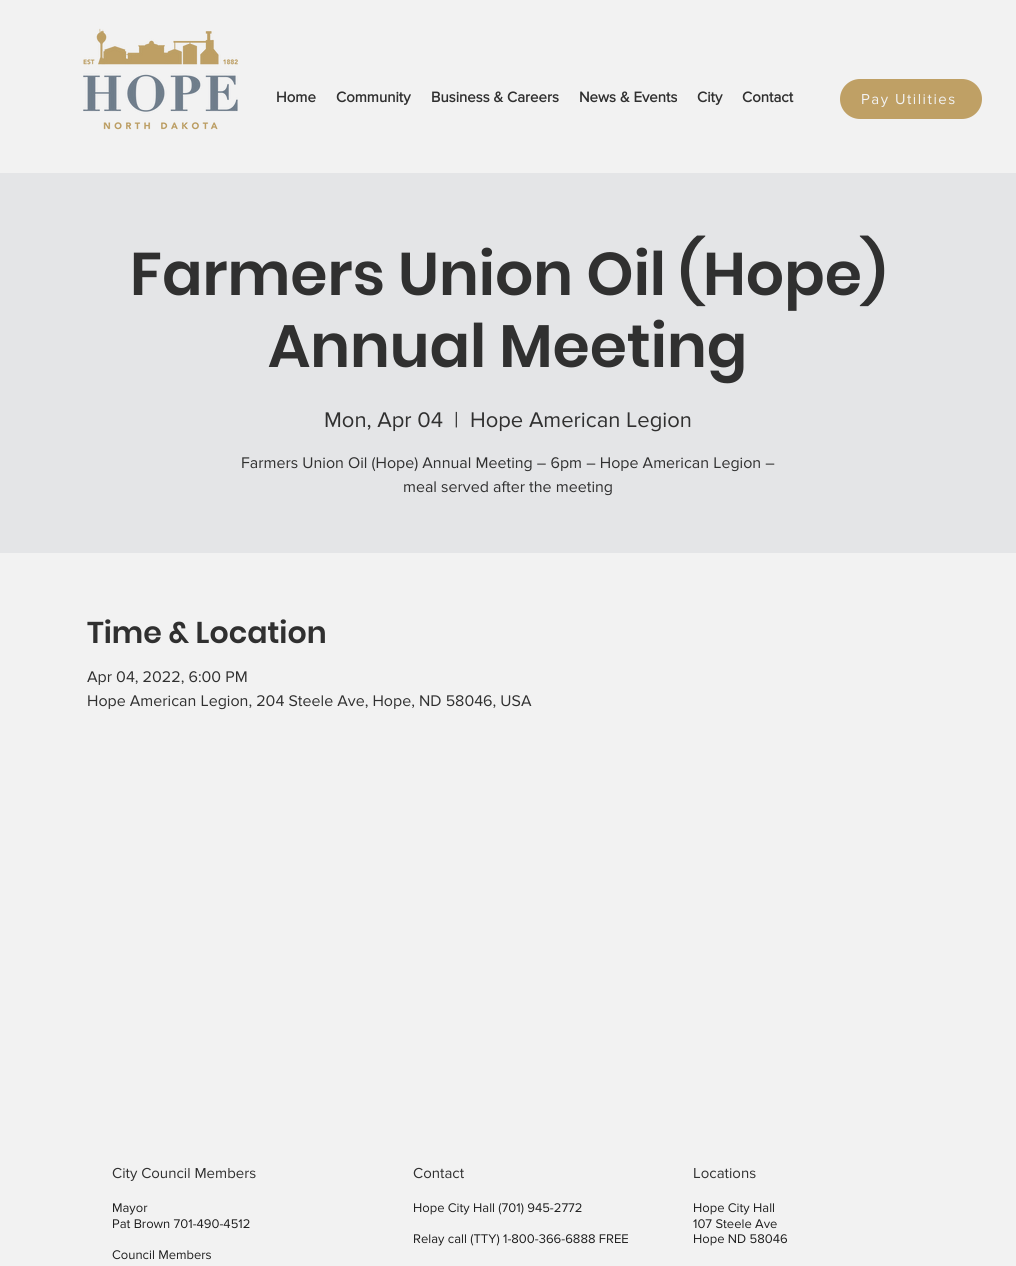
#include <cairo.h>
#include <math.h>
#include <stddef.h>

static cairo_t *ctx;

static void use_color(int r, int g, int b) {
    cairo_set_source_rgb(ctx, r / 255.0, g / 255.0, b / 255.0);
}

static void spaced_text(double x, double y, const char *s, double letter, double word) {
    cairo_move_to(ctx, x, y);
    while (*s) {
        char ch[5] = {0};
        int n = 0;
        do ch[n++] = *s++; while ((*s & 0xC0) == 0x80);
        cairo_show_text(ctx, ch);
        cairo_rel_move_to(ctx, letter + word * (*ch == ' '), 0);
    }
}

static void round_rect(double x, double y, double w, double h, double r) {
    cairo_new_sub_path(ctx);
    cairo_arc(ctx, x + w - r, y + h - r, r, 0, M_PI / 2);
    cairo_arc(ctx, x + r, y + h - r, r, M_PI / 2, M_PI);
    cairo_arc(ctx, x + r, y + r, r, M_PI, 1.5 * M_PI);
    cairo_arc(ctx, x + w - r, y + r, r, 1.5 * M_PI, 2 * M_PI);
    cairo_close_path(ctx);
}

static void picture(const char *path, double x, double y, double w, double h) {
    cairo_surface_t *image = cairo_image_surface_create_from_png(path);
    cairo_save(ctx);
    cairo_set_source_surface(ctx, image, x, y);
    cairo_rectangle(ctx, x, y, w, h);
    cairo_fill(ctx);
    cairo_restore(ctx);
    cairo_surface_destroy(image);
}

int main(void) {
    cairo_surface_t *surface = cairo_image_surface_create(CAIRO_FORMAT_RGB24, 1016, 1266);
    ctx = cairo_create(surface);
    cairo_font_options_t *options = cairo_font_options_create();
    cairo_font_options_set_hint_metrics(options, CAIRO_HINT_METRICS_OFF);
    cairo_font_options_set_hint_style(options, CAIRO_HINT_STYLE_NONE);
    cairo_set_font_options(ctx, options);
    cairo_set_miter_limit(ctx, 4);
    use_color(242, 242, 242);
    cairo_paint(ctx);
    picture("img1.png", 83, 28, 155, 102);
    cairo_select_font_face(ctx, "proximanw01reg", CAIRO_FONT_SLANT_NORMAL, CAIRO_FONT_WEIGHT_BOLD);
    cairo_set_font_size(ctx, 15);
    use_color(48, 48, 48);
    cairo_move_to(ctx, 276, 102);
    cairo_show_text(ctx, "Home");
    cairo_move_to(ctx, 336, 102);
    cairo_show_text(ctx, "Community");
    cairo_move_to(ctx, 431, 102);
    cairo_show_text(ctx, "Business & Careers");
    cairo_move_to(ctx, 579, 102);
    cairo_show_text(ctx, "News & Events");
    cairo_move_to(ctx, 697, 102);
    cairo_show_text(ctx, "City");
    cairo_move_to(ctx, 742, 102);
    cairo_show_text(ctx, "Contact");
    use_color(191, 160, 101);
    round_rect(840, 79, 142, 40, 20);
    cairo_fill(ctx);
    cairo_select_font_face(ctx, "proximanw01reg", CAIRO_FONT_SLANT_NORMAL, CAIRO_FONT_WEIGHT_NORMAL);
    use_color(242, 242, 242);
    spaced_text(861, 104, "Pay Utilities", 1.5, 0);
    use_color(228, 229, 231);
    cairo_rectangle(ctx, 0, 173, 1016, 380);
    cairo_fill(ctx);
    cairo_select_font_face(ctx, "Poppins SemiBold", CAIRO_FONT_SLANT_NORMAL, CAIRO_FONT_WEIGHT_NORMAL);
    cairo_set_font_size(ctx, 60);
    use_color(48, 48, 48);
    cairo_move_to(ctx, 130, 295);
    cairo_show_text(ctx, "Farmers Union Oil (Hope)");
    cairo_move_to(ctx, 268, 367);
    cairo_show_text(ctx, "Annual Meeting");
    cairo_select_font_face(ctx, "proximanw01reg", CAIRO_FONT_SLANT_NORMAL, CAIRO_FONT_WEIGHT_NORMAL);
    cairo_set_font_size(ctx, 22);
    cairo_move_to(ctx, 324, 427);
    cairo_show_text(ctx, "Mon, Apr 04");
    cairo_move_to(ctx, 454, 427);
    cairo_show_text(ctx, "|");
    cairo_move_to(ctx, 470, 427);
    cairo_show_text(ctx, "Hope American Legion");
    cairo_set_font_size(ctx, 16);
    cairo_move_to(ctx, 241, 468);
    cairo_show_text(ctx, "Farmers Union Oil (Hope) Annual Meeting – 6pm – Hope American Legion –");
    cairo_move_to(ctx, 403, 492);
    cairo_show_text(ctx, "meal served after the meeting");
    cairo_select_font_face(ctx, "Poppins SemiBold", CAIRO_FONT_SLANT_NORMAL, CAIRO_FONT_WEIGHT_NORMAL);
    cairo_set_font_size(ctx, 30);
    cairo_move_to(ctx, 87, 643);
    cairo_show_text(ctx, "Time & Location");
    cairo_select_font_face(ctx, "proximanw01reg", CAIRO_FONT_SLANT_NORMAL, CAIRO_FONT_WEIGHT_NORMAL);
    cairo_set_font_size(ctx, 16);
    cairo_move_to(ctx, 87, 682);
    cairo_show_text(ctx, "Apr 04, 2022, 6:00 PM");
    cairo_move_to(ctx, 87, 706);
    cairo_show_text(ctx, "Hope American Legion, 204 Steele Ave, Hope, ND 58046, USA");
    cairo_set_font_size(ctx, 15);
    cairo_move_to(ctx, 112, 1178);
    cairo_show_text(ctx, "City Council Members");
    cairo_set_font_size(ctx, 13);
    use_color(30, 30, 30);
    cairo_move_to(ctx, 112, 1212);
    cairo_show_text(ctx, "Mayor");
    cairo_move_to(ctx, 112, 1228);
    cairo_show_text(ctx, "Pat Brown 701-490-4512");
    cairo_move_to(ctx, 112, 1259);
    cairo_show_text(ctx, "Council Members");
    cairo_set_font_size(ctx, 15);
    use_color(48, 48, 48);
    cairo_move_to(ctx, 413, 1178);
    cairo_show_text(ctx, "Contact");
    cairo_set_font_size(ctx, 13);
    use_color(30, 30, 30);
    cairo_move_to(ctx, 413, 1212);
    cairo_show_text(ctx, "Hope City Hall (701) 945-2772");
    cairo_move_to(ctx, 413, 1243);
    cairo_show_text(ctx, "Relay call (TTY) 1-800-366-6888 FREE");
    cairo_set_font_size(ctx, 15);
    use_color(48, 48, 48);
    cairo_move_to(ctx, 693, 1178);
    cairo_show_text(ctx, "Locations");
    cairo_set_font_size(ctx, 13);
    use_color(30, 30, 30);
    cairo_move_to(ctx, 693, 1212);
    cairo_show_text(ctx, "Hope City Hall");
    cairo_move_to(ctx, 693, 1228);
    cairo_show_text(ctx, "107 Steele Ave");
    cairo_move_to(ctx, 693, 1243);
    cairo_show_text(ctx, "Hope ND 58046");
    cairo_surface_write_to_png(surface, "result.png");
    cairo_font_options_destroy(options);
    cairo_destroy(ctx);
    cairo_surface_destroy(surface);
    return 0;
}
